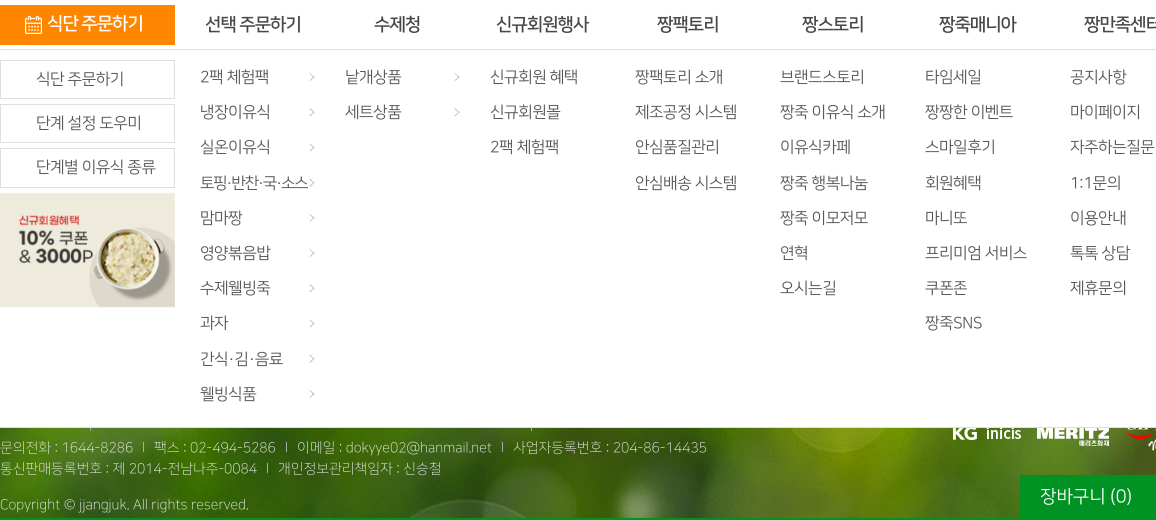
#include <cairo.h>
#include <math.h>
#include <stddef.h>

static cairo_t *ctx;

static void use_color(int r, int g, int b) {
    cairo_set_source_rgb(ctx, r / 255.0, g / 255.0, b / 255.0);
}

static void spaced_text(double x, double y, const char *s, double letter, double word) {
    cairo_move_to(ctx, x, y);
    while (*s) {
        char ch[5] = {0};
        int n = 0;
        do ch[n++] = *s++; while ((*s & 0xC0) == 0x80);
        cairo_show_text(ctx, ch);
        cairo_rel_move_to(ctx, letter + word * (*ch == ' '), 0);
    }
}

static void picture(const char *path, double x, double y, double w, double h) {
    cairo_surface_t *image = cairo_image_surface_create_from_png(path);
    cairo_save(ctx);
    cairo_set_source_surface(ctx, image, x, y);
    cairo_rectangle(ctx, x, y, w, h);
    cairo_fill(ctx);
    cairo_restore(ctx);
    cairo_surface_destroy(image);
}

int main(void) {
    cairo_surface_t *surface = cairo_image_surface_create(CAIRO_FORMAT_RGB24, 1156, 520);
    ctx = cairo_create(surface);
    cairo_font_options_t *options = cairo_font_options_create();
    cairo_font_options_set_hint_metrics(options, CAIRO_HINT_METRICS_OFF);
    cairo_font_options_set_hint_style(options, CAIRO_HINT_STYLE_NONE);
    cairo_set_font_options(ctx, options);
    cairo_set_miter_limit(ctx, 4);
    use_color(255, 255, 255);
    cairo_paint(ctx);
    use_color(255, 134, 1);
    cairo_rectangle(ctx, 0, 5, 175, 40);
    cairo_fill(ctx);
    picture("img1.png", 25, 16, 17, 18);
    cairo_select_font_face(ctx, "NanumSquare", CAIRO_FONT_SLANT_NORMAL, CAIRO_FONT_WEIGHT_BOLD);
    cairo_set_font_size(ctx, 18);
    use_color(255, 255, 255);
    spaced_text(47, 29, "식단 주문하기", -1, 0);
    use_color(72, 72, 72);
    spaced_text(205, 30, "선택 주문하기", -1, 0);
    spaced_text(374, 30, "수제청", -1, 0);
    spaced_text(496, 30, "신규회원행사", -1, 0);
    spaced_text(657, 30, "짱팩토리", -1, 0);
    spaced_text(802, 30, "짱스토리", -1, 0);
    spaced_text(939, 30, "짱죽매니아", -1, 0);
    spaced_text(1084, 30, "짱만족센터", -1, 0);
    picture("img3.png", 0, 428, 1156, 90);
    use_color(170, 170, 170);
    cairo_rectangle(ctx, 90, 421, 1, 10);
    cairo_fill(ctx);
    cairo_rectangle(ctx, 531, 421, 1, 10);
    cairo_fill(ctx);
    use_color(255, 255, 255);
    cairo_rectangle(ctx, 90, 421, 442, 6);
    cairo_fill(ctx);
    use_color(223, 223, 223);
    cairo_rectangle(ctx, 0, 49, 1156, 1);
    cairo_fill(ctx);
    cairo_rectangle(ctx, 0, 427, 1156, 1);
    cairo_fill(ctx);
    cairo_rectangle(ctx, 0.5, 60.5, 174, 38);
    cairo_set_line_width(ctx, 1);
    cairo_stroke(ctx);
    cairo_select_font_face(ctx, "NanumSquare", CAIRO_FONT_SLANT_NORMAL, CAIRO_FONT_WEIGHT_NORMAL);
    cairo_set_font_size(ctx, 16);
    use_color(88, 88, 88);
    spaced_text(36, 84, "식단 주문하기", -0.5, 0);
    cairo_rectangle(ctx, 0.5, 104.5, 174, 38);
    use_color(223, 223, 223);
    cairo_stroke(ctx);
    use_color(88, 88, 88);
    spaced_text(36, 128, "단계 설정 도우미", -0.5, 0);
    cairo_rectangle(ctx, 0.5, 148.5, 174, 39);
    use_color(223, 223, 223);
    cairo_stroke(ctx);
    use_color(88, 88, 88);
    spaced_text(36, 172, "단계별 이유식 종류", -0.5, 0);
    picture("img2.png", 0, 192, 175, 116);
    spaced_text(200, 82, "2팩 체험팩", -0.5, 0);
    use_color(187, 187, 187);
    cairo_new_path(ctx);
    cairo_move_to(ctx, 309.5, 80.5);
    cairo_line_to(ctx, 314, 76);
    cairo_line_to(ctx, 314.5, 77);
    cairo_line_to(ctx, 310, 81);
    cairo_close_path(ctx);
    cairo_fill(ctx);
    cairo_new_path(ctx);
    cairo_move_to(ctx, 310, 73);
    cairo_line_to(ctx, 314.5, 77.5);
    cairo_line_to(ctx, 314, 78);
    cairo_line_to(ctx, 309.5, 73.5);
    cairo_close_path(ctx);
    cairo_fill(ctx);
    use_color(88, 88, 88);
    spaced_text(200, 117, "냉장이유식", -0.5, 0);
    use_color(187, 187, 187);
    cairo_new_path(ctx);
    cairo_move_to(ctx, 309.5, 115.5);
    cairo_line_to(ctx, 314, 111.5);
    cairo_line_to(ctx, 314.5, 112);
    cairo_line_to(ctx, 310, 116.5);
    cairo_close_path(ctx);
    cairo_fill(ctx);
    cairo_new_path(ctx);
    cairo_move_to(ctx, 310, 108);
    cairo_line_to(ctx, 314.5, 112.5);
    cairo_line_to(ctx, 314, 113);
    cairo_line_to(ctx, 309.5, 109);
    cairo_close_path(ctx);
    cairo_fill(ctx);
    use_color(88, 88, 88);
    spaced_text(200, 152, "실온이유식", -0.5, 0);
    use_color(187, 187, 187);
    cairo_new_path(ctx);
    cairo_move_to(ctx, 309.5, 151);
    cairo_line_to(ctx, 314, 146.5);
    cairo_line_to(ctx, 314.5, 147.5);
    cairo_line_to(ctx, 310, 151.5);
    cairo_close_path(ctx);
    cairo_fill(ctx);
    cairo_new_path(ctx);
    cairo_move_to(ctx, 310, 143.5);
    cairo_line_to(ctx, 314.5, 147.5);
    cairo_line_to(ctx, 314, 148.5);
    cairo_line_to(ctx, 309.5, 144);
    cairo_close_path(ctx);
    cairo_fill(ctx);
    use_color(88, 88, 88);
    spaced_text(200, 188, "토핑·반찬·국·소스", -1.5, 0);
    use_color(187, 187, 187);
    cairo_new_path(ctx);
    cairo_move_to(ctx, 309.5, 186);
    cairo_line_to(ctx, 314, 182);
    cairo_line_to(ctx, 314.5, 182.5);
    cairo_line_to(ctx, 310, 187);
    cairo_close_path(ctx);
    cairo_fill(ctx);
    cairo_new_path(ctx);
    cairo_move_to(ctx, 310, 178.5);
    cairo_line_to(ctx, 314.5, 183);
    cairo_line_to(ctx, 314, 183.5);
    cairo_line_to(ctx, 309.5, 179.5);
    cairo_close_path(ctx);
    cairo_fill(ctx);
    use_color(88, 88, 88);
    spaced_text(200, 223, "맘마짱", -0.5, 0);
    use_color(187, 187, 187);
    cairo_new_path(ctx);
    cairo_move_to(ctx, 309.5, 221.5);
    cairo_line_to(ctx, 314, 217);
    cairo_line_to(ctx, 314.5, 217.5);
    cairo_line_to(ctx, 310, 222);
    cairo_close_path(ctx);
    cairo_fill(ctx);
    cairo_new_path(ctx);
    cairo_move_to(ctx, 310, 214);
    cairo_line_to(ctx, 314.5, 218);
    cairo_line_to(ctx, 314, 219);
    cairo_line_to(ctx, 309.5, 214.5);
    cairo_close_path(ctx);
    cairo_fill(ctx);
    use_color(88, 88, 88);
    spaced_text(200, 258, "영양볶음밥", -0.5, 0);
    use_color(187, 187, 187);
    cairo_new_path(ctx);
    cairo_move_to(ctx, 309.5, 256.5);
    cairo_line_to(ctx, 314, 252);
    cairo_line_to(ctx, 314.5, 253);
    cairo_line_to(ctx, 310, 257);
    cairo_close_path(ctx);
    cairo_fill(ctx);
    cairo_new_path(ctx);
    cairo_move_to(ctx, 310, 249);
    cairo_line_to(ctx, 314.5, 253.5);
    cairo_line_to(ctx, 314, 254);
    cairo_line_to(ctx, 309.5, 249.5);
    cairo_close_path(ctx);
    cairo_fill(ctx);
    use_color(88, 88, 88);
    spaced_text(200, 293, "수제웰빙죽", -0.5, 0);
    use_color(187, 187, 187);
    cairo_new_path(ctx);
    cairo_move_to(ctx, 309.5, 291.5);
    cairo_line_to(ctx, 314, 287.5);
    cairo_line_to(ctx, 314.5, 288);
    cairo_line_to(ctx, 310, 292.5);
    cairo_close_path(ctx);
    cairo_fill(ctx);
    cairo_new_path(ctx);
    cairo_move_to(ctx, 310, 284);
    cairo_line_to(ctx, 314.5, 288.5);
    cairo_line_to(ctx, 314, 289);
    cairo_line_to(ctx, 309.5, 285);
    cairo_close_path(ctx);
    cairo_fill(ctx);
    use_color(88, 88, 88);
    spaced_text(200, 328, "과자", -0.5, 0);
    use_color(187, 187, 187);
    cairo_new_path(ctx);
    cairo_move_to(ctx, 309.5, 327);
    cairo_line_to(ctx, 314, 322.5);
    cairo_line_to(ctx, 314.5, 323.5);
    cairo_line_to(ctx, 310, 327.5);
    cairo_close_path(ctx);
    cairo_fill(ctx);
    cairo_new_path(ctx);
    cairo_move_to(ctx, 310, 319.5);
    cairo_line_to(ctx, 314.5, 323.5);
    cairo_line_to(ctx, 314, 324.5);
    cairo_line_to(ctx, 309.5, 320);
    cairo_close_path(ctx);
    cairo_fill(ctx);
    use_color(88, 88, 88);
    spaced_text(200, 364, "간식·김·음료", -0.5, 0);
    use_color(187, 187, 187);
    cairo_new_path(ctx);
    cairo_move_to(ctx, 309.5, 362);
    cairo_line_to(ctx, 314, 358);
    cairo_line_to(ctx, 314.5, 358.5);
    cairo_line_to(ctx, 310, 363);
    cairo_close_path(ctx);
    cairo_fill(ctx);
    cairo_new_path(ctx);
    cairo_move_to(ctx, 310, 354.5);
    cairo_line_to(ctx, 314.5, 359);
    cairo_line_to(ctx, 314, 359.5);
    cairo_line_to(ctx, 309.5, 355.5);
    cairo_close_path(ctx);
    cairo_fill(ctx);
    use_color(88, 88, 88);
    spaced_text(200, 399, "웰빙식품", -0.5, 0);
    use_color(187, 187, 187);
    cairo_new_path(ctx);
    cairo_move_to(ctx, 309.5, 397.5);
    cairo_line_to(ctx, 314, 393);
    cairo_line_to(ctx, 314.5, 394);
    cairo_line_to(ctx, 310, 398);
    cairo_close_path(ctx);
    cairo_fill(ctx);
    cairo_new_path(ctx);
    cairo_move_to(ctx, 310, 390);
    cairo_line_to(ctx, 314.5, 394);
    cairo_line_to(ctx, 314, 395);
    cairo_line_to(ctx, 309.5, 390.5);
    cairo_close_path(ctx);
    cairo_fill(ctx);
    use_color(88, 88, 88);
    spaced_text(345, 82, "낱개상품", -0.5, 0);
    use_color(187, 187, 187);
    cairo_new_path(ctx);
    cairo_move_to(ctx, 454.5, 80.5);
    cairo_line_to(ctx, 459, 76);
    cairo_line_to(ctx, 459.5, 77);
    cairo_line_to(ctx, 455, 81);
    cairo_close_path(ctx);
    cairo_fill(ctx);
    cairo_new_path(ctx);
    cairo_move_to(ctx, 455, 73);
    cairo_line_to(ctx, 459.5, 77.5);
    cairo_line_to(ctx, 459, 78);
    cairo_line_to(ctx, 454.5, 73.5);
    cairo_close_path(ctx);
    cairo_fill(ctx);
    use_color(88, 88, 88);
    spaced_text(345, 117, "세트상품", -0.5, 0);
    use_color(187, 187, 187);
    cairo_new_path(ctx);
    cairo_move_to(ctx, 454.5, 115.5);
    cairo_line_to(ctx, 459, 111.5);
    cairo_line_to(ctx, 459.5, 112);
    cairo_line_to(ctx, 455, 116.5);
    cairo_close_path(ctx);
    cairo_fill(ctx);
    cairo_new_path(ctx);
    cairo_move_to(ctx, 455, 108);
    cairo_line_to(ctx, 459.5, 112.5);
    cairo_line_to(ctx, 459, 113);
    cairo_line_to(ctx, 454.5, 109);
    cairo_close_path(ctx);
    cairo_fill(ctx);
    use_color(88, 88, 88);
    spaced_text(490, 82, "신규회원 혜택", -0.5, 0);
    spaced_text(490, 117, "신규회원몰", -0.5, 0);
    spaced_text(490, 152, "2팩 체험팩", -0.5, 0);
    spaced_text(635, 82, "짱팩토리 소개", -0.5, 0);
    spaced_text(635, 117, "제조공정 시스템", -0.5, 0);
    spaced_text(635, 152, "안심품질관리", -0.5, 0);
    spaced_text(635, 188, "안심배송 시스템", -0.5, 0);
    spaced_text(780, 82, "브랜드스토리", -0.5, 0);
    spaced_text(780, 117, "짱죽 이유식 소개", -0.5, 0);
    spaced_text(780, 152, "이유식카페", -0.5, 0);
    spaced_text(780, 188, "짱죽 행복나눔", -0.5, 0);
    spaced_text(780, 223, "짱죽 이모저모", -0.5, 0);
    spaced_text(780, 258, "연혁", -0.5, 0);
    spaced_text(780, 293, "오시는길", -0.5, 0);
    spaced_text(925, 82, "타임세일", -0.5, 0);
    spaced_text(925, 117, "짱짱한 이벤트", -0.5, 0);
    spaced_text(925, 152, "스마일후기", -0.5, 0);
    spaced_text(925, 188, "회원혜택", -0.5, 0);
    spaced_text(925, 223, "마니또", -0.5, 0);
    spaced_text(925, 258, "프리미엄 서비스", -0.5, 0);
    spaced_text(925, 293, "쿠폰존", -0.5, 0);
    spaced_text(925, 328, "짱죽SNS", -0.5, 0);
    spaced_text(1070, 82, "공지사항", -0.5, 0);
    spaced_text(1070, 117, "마이페이지", -0.5, 0);
    spaced_text(1070, 152, "자주하는질문", -0.5, 0);
    spaced_text(1070, 188, "1:1문의", -0.5, 0);
    spaced_text(1070, 223, "이용안내", -0.5, 0);
    spaced_text(1070, 258, "톡톡 상담", -0.5, 0);
    spaced_text(1070, 293, "제휴문의", -0.5, 0);
    cairo_select_font_face(ctx, "NanumSquare Light", CAIRO_FONT_SLANT_NORMAL, CAIRO_FONT_WEIGHT_NORMAL);
    cairo_set_font_size(ctx, 14);
    use_color(238, 238, 238);
    cairo_move_to(ctx, 0, 452);
    cairo_show_text(ctx, "문의전화 : 1644-8286");
    use_color(170, 170, 170);
    cairo_rectangle(ctx, 143, 442, 1, 10);
    cairo_fill(ctx);
    use_color(238, 238, 238);
    cairo_move_to(ctx, 154, 452);
    cairo_show_text(ctx, "팩스 : 02-494-5286");
    use_color(170, 170, 170);
    cairo_rectangle(ctx, 286, 442, 1, 10);
    cairo_fill(ctx);
    use_color(238, 238, 238);
    cairo_move_to(ctx, 297, 452);
    cairo_show_text(ctx, "이메일 : dokyye02@hanmail.net");
    use_color(170, 170, 170);
    cairo_rectangle(ctx, 502, 442, 1, 10);
    cairo_fill(ctx);
    use_color(238, 238, 238);
    cairo_move_to(ctx, 513, 452);
    cairo_show_text(ctx, "사업자등록번호 : 204-86-14435");
    cairo_move_to(ctx, 0, 473);
    cairo_show_text(ctx, "통신판매등록번호 : 제 2014-전남나주-0084");
    use_color(170, 170, 170);
    cairo_rectangle(ctx, 267, 463, 1, 10);
    cairo_fill(ctx);
    use_color(238, 238, 238);
    cairo_move_to(ctx, 278, 473);
    cairo_show_text(ctx, "개인정보관리책임자 : 신승철");
    cairo_move_to(ctx, 0, 509);
    cairo_show_text(ctx, "Copyright © jjangjuk. All rights reserved.");
    picture("img4.png", 953, 428, 68, 12);
    picture("img5.png", 1037, 428, 72, 18);
    picture("img6.png", 1125, 428, 31, 23);
    use_color(0, 146, 35);
    cairo_rectangle(ctx, 0, 518, 1020, 2);
    cairo_fill(ctx);
    cairo_rectangle(ctx, 1020, 475, 136, 45);
    cairo_fill(ctx);
    cairo_select_font_face(ctx, "NanumSquare", CAIRO_FONT_SLANT_NORMAL, CAIRO_FONT_WEIGHT_NORMAL);
    cairo_set_font_size(ctx, 18);
    use_color(255, 255, 255);
    cairo_move_to(ctx, 1040, 502);
    cairo_show_text(ctx, "장바구니 (0)");
    cairo_surface_write_to_png(surface, "result.png");
    cairo_font_options_destroy(options);
    cairo_destroy(ctx);
    cairo_surface_destroy(surface);
    return 0;
}
